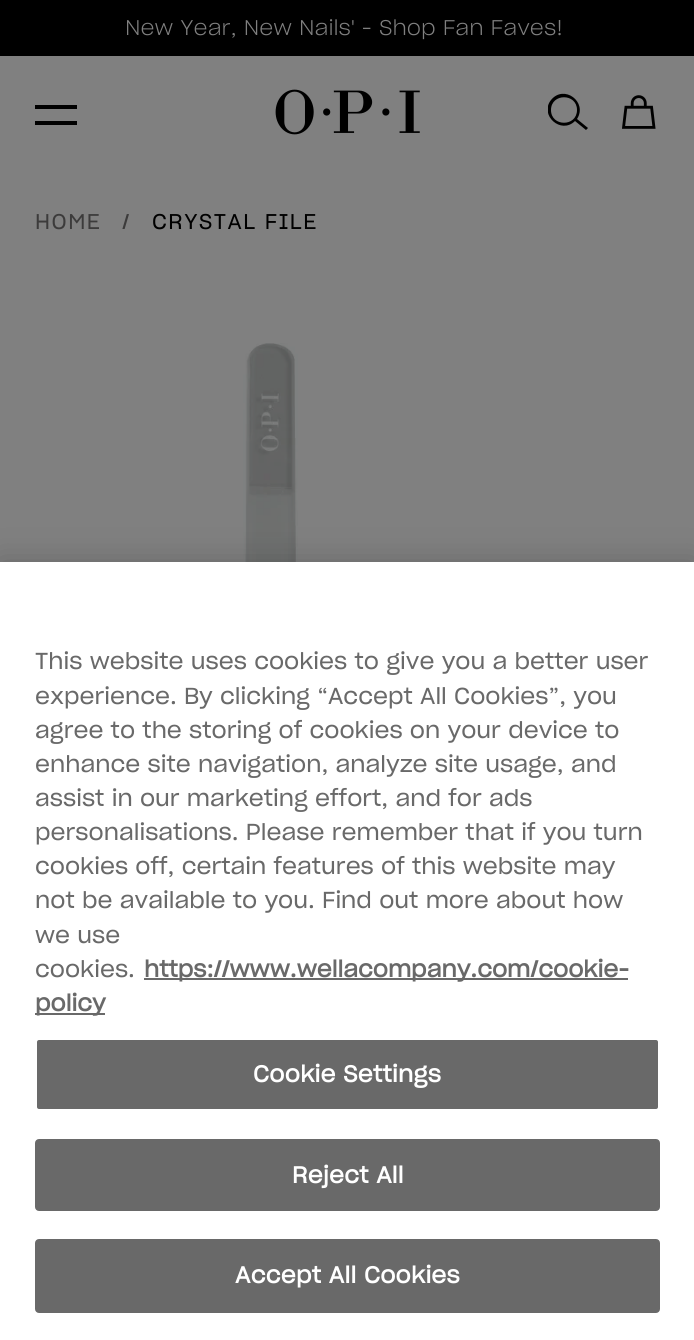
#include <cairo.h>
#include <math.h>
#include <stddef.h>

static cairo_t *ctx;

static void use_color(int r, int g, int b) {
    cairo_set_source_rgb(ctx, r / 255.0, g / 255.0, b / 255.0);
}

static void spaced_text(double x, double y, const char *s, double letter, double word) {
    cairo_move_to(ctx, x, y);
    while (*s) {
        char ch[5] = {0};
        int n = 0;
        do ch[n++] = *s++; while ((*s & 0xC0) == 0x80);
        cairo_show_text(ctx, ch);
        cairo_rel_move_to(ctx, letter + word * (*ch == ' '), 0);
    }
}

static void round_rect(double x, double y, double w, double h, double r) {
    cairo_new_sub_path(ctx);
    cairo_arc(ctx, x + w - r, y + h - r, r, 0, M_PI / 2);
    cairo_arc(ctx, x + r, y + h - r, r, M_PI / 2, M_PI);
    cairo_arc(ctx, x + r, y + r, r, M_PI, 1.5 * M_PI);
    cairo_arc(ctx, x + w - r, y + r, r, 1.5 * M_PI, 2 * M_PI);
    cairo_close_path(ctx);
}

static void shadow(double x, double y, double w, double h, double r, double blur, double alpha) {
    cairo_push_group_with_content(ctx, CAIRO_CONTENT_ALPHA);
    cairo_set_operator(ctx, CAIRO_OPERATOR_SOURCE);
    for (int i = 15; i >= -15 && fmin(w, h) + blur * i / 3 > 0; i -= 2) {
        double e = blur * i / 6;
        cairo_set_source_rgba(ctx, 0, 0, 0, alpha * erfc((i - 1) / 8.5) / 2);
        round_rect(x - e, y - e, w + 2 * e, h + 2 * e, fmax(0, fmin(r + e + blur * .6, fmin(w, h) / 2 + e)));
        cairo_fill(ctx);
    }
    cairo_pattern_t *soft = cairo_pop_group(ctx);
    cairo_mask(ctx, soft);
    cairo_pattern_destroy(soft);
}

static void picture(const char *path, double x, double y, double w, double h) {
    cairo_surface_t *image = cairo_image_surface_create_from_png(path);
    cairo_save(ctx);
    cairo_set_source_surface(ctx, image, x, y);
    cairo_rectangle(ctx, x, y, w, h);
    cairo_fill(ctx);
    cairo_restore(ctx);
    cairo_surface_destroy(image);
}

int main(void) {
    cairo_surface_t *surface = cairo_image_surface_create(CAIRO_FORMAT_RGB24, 694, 1340);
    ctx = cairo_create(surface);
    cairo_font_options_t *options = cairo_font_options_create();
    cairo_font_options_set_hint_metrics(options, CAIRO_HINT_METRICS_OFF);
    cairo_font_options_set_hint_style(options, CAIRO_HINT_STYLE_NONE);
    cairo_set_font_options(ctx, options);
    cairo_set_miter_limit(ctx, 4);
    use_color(128, 128, 128);
    cairo_paint(ctx);
    use_color(0, 0, 0);
    cairo_rectangle(ctx, 0, 0, 694, 56);
    cairo_fill(ctx);
    cairo_select_font_face(ctx, "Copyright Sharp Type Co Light", CAIRO_FONT_SLANT_NORMAL, CAIRO_FONT_WEIGHT_NORMAL);
    cairo_set_font_size(ctx, 21);
    use_color(128, 128, 128);
    cairo_move_to(ctx, 125, 35);
    cairo_show_text(ctx, "New Year, New Nails' - Shop Fan Faves!");
    use_color(0, 0, 0);
    cairo_rectangle(ctx, 35, 105, 42, 4);
    cairo_fill(ctx);
    cairo_rectangle(ctx, 35, 121, 42, 4);
    cairo_fill(ctx);
    picture("img1.png", 275, 89, 145, 46);
    cairo_save(ctx);
    cairo_rectangle(ctx, 548, 91, 42, 42);
    cairo_clip(ctx);
    cairo_set_fill_rule(ctx, CAIRO_FILL_RULE_EVEN_ODD);
    cairo_new_path(ctx);
    cairo_move_to(ctx, 577, 110);
    cairo_curve_to(ctx, 577, 127, 551, 127, 551, 110);
    cairo_curve_to(ctx, 551, 93, 577, 93, 577, 110);
    cairo_close_path(ctx);
    cairo_move_to(ctx, 575, 121);
    cairo_curve_to(ctx, 561, 135, 539, 115, 551, 100);
    cairo_curve_to(ctx, 564, 84, 588, 102, 577, 119);
    cairo_line_to(ctx, 588, 128);
    cairo_line_to(ctx, 586, 130);
    cairo_close_path(ctx);
    cairo_fill(ctx);
    cairo_restore(ctx);
    picture("img2.png", 622, 95, 34, 34);
    cairo_select_font_face(ctx, "Copyright Sharp Type Co", CAIRO_FONT_SLANT_NORMAL, CAIRO_FONT_WEIGHT_NORMAL);
    use_color(60, 59, 59);
    spaced_text(35, 229, "HOME", 1.5, 0);
    spaced_text(122, 229, "/", 1.5, 0);
    use_color(0, 0, 0);
    spaced_text(152, 229, "CRYSTAL FILE", 1.5, 0);
    picture("img3.png", 243, 343, 55, 219);
    use_color(0, 0, 0);
    shadow(0, 562, 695, 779, 0, 16, 0.2);
    use_color(255, 255, 255);
    cairo_rectangle(ctx, 0, 562, 694, 778);
    cairo_fill(ctx);
    cairo_set_font_size(ctx, 22.75);
    use_color(105, 105, 105);
    cairo_move_to(ctx, 35, 669);
    cairo_show_text(ctx, "This website uses cookies to give you a better user");
    cairo_move_to(ctx, 35, 704);
    cairo_show_text(ctx, "experience. By clicking “Accept All Cookies”, you");
    cairo_move_to(ctx, 35, 738);
    cairo_show_text(ctx, "agree to the storing of cookies on your device to");
    cairo_move_to(ctx, 35, 772);
    cairo_show_text(ctx, "enhance site navigation, analyze site usage, and");
    cairo_move_to(ctx, 35, 806);
    cairo_show_text(ctx, "assist in our marketing effort, and for ads");
    cairo_move_to(ctx, 35, 840);
    cairo_show_text(ctx, "personalisations. Please remember that if you turn");
    cairo_move_to(ctx, 35, 874);
    cairo_show_text(ctx, "cookies off, certain features of this website may");
    cairo_move_to(ctx, 35, 908);
    cairo_show_text(ctx, "not be available to you. Find out more about how");
    cairo_move_to(ctx, 35, 943);
    cairo_show_text(ctx, "we use");
    cairo_move_to(ctx, 35, 977);
    cairo_show_text(ctx, "cookies.");
    cairo_rectangle(ctx, 144, 978, 484, 2);
    cairo_fill(ctx);
    cairo_select_font_face(ctx, "Copyright Sharp Type Co", CAIRO_FONT_SLANT_NORMAL, CAIRO_FONT_WEIGHT_BOLD);
    cairo_move_to(ctx, 144, 977);
    cairo_show_text(ctx, "https://www.wellacompany.com/cookie-");
    cairo_rectangle(ctx, 35, 1013, 70, 2);
    cairo_fill(ctx);
    cairo_move_to(ctx, 35, 1011);
    cairo_show_text(ctx, "policy");
    round_rect(36, 1039, 623, 71, 3);
    cairo_fill_preserve(ctx);
    use_color(255, 255, 255);
    cairo_stroke(ctx);
    spaced_text(253, 1082, "Cookie Settings", 0.25, 0);
    use_color(105, 105, 105);
    round_rect(36, 1140, 623, 70, 3);
    cairo_fill_preserve(ctx);
    cairo_stroke(ctx);
    use_color(255, 255, 255);
    spaced_text(292, 1183, "Reject All", 0.25, 0);
    use_color(105, 105, 105);
    round_rect(36, 1240, 623, 72, 3);
    cairo_fill_preserve(ctx);
    cairo_stroke(ctx);
    use_color(255, 255, 255);
    spaced_text(235, 1283, "Accept All Cookies", 0.25, 0);
    cairo_surface_write_to_png(surface, "result.png");
    cairo_font_options_destroy(options);
    cairo_destroy(ctx);
    cairo_surface_destroy(surface);
    return 0;
}
